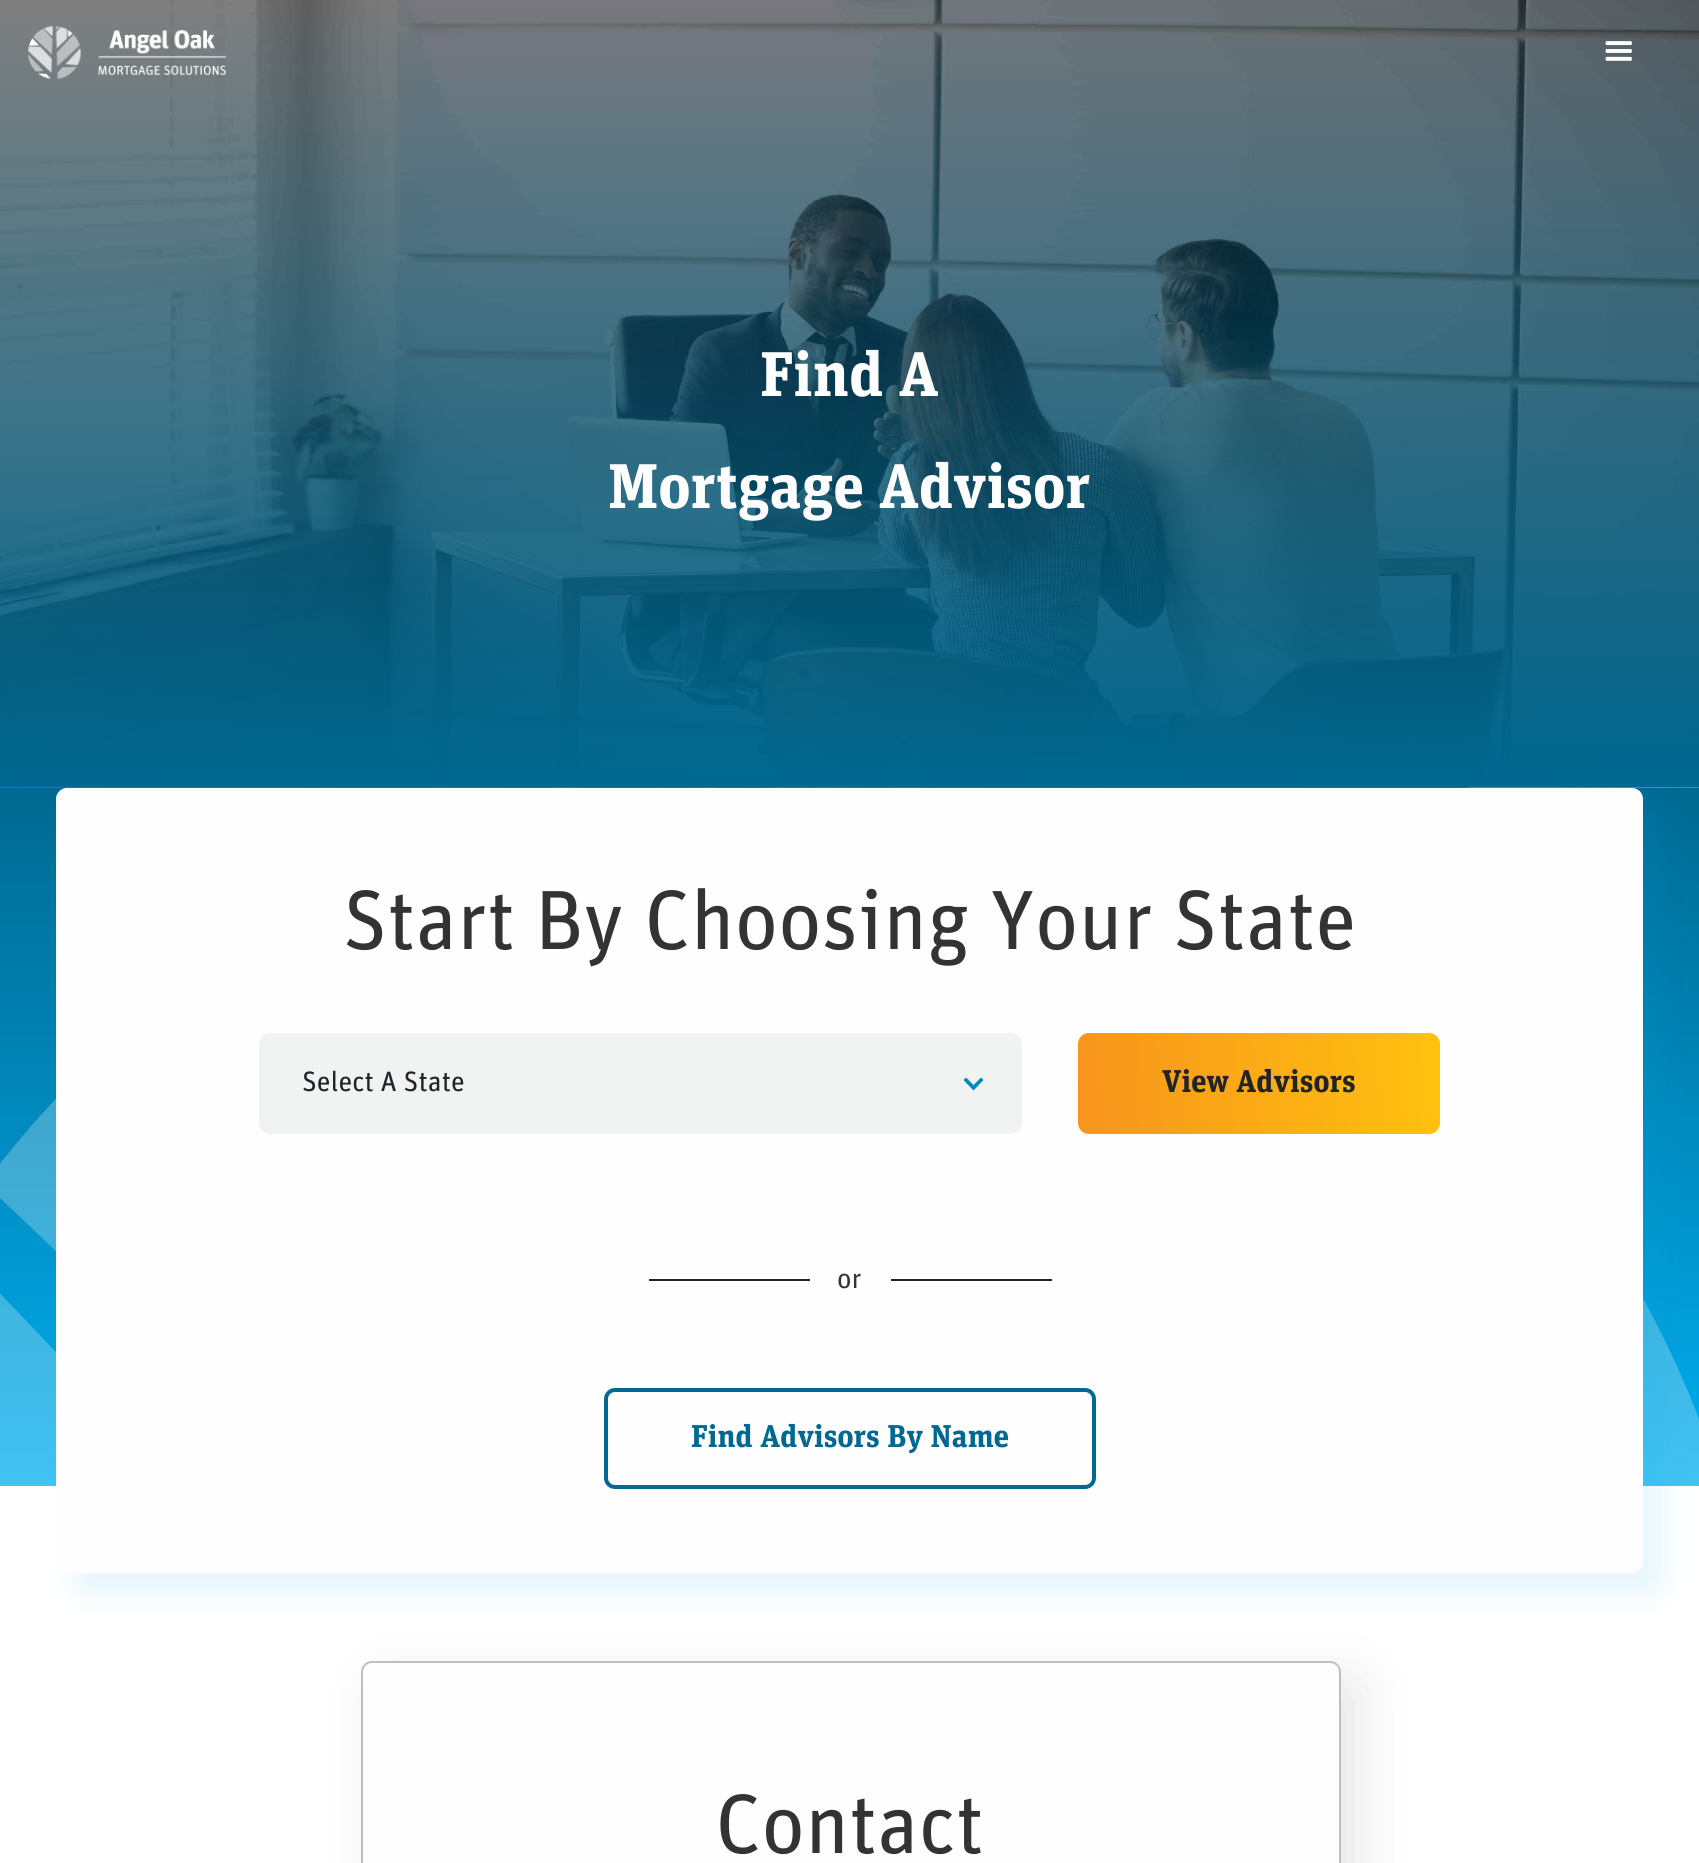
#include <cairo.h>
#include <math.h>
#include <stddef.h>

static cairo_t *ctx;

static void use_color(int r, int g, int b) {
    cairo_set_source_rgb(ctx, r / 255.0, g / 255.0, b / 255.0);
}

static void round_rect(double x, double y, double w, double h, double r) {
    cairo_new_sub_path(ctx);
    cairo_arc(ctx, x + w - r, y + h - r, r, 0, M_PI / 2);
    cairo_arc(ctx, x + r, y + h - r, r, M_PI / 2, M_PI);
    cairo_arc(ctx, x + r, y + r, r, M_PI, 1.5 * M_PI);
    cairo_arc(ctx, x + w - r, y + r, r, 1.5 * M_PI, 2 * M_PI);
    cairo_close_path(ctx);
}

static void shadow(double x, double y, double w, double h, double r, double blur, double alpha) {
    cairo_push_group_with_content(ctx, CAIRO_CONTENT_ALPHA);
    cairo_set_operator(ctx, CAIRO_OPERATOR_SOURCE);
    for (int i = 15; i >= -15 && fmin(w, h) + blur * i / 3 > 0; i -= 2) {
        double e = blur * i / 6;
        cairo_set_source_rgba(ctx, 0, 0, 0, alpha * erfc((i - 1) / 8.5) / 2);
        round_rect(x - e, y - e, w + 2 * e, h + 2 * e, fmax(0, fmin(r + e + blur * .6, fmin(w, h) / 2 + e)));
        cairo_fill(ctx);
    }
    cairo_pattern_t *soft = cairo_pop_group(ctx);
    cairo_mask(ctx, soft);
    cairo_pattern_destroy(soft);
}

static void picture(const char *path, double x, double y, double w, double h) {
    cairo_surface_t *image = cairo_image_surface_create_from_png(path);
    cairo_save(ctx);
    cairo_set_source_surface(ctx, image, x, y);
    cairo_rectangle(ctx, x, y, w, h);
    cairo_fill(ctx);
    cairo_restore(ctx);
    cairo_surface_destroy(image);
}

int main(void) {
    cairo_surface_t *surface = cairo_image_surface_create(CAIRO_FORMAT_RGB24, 1699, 1863);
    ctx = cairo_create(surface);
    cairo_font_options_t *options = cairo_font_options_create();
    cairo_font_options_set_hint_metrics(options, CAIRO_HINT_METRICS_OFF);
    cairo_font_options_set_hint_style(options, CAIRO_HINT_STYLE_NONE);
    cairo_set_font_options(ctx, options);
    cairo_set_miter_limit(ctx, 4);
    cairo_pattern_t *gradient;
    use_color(255, 255, 255);
    cairo_paint(ctx);
    picture("img3.png", 0, 0, 1699, 788);
    picture("img1.png", 28, 26, 198, 53);
    picture("img2.png", 1605, 41, 27, 20);
    cairo_select_font_face(ctx, "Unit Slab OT", CAIRO_FONT_SLANT_NORMAL, CAIRO_FONT_WEIGHT_BOLD);
    cairo_set_font_size(ctx, 63);
    use_color(254, 254, 254);
    cairo_move_to(ctx, 760, 396);
    cairo_show_text(ctx, "Find A");
    cairo_move_to(ctx, 608, 508);
    cairo_show_text(ctx, "Mortgage Advisor");
    gradient = cairo_pattern_create_linear(850, 787, 850, 1486);
    cairo_pattern_add_color_stop_rgba(gradient, 0, 0, 0.412, 0.569, 1);
    cairo_pattern_add_color_stop_rgba(gradient, 1, 0, 0.682, 0.937, 1);
    cairo_set_source(ctx, gradient);
    cairo_pattern_destroy(gradient);
    cairo_rectangle(ctx, 0, 788, 1699, 698);
    cairo_fill(ctx);
    picture("img4.png", 0, 1099, 1699, 387);
    use_color(0, 174, 239);
    shadow(75, 807, 1588, 786, 11, 14, 0.1);
    use_color(254, 254, 254);
    round_rect(56, 788, 1587, 785, 11);
    cairo_fill(ctx);
    cairo_select_font_face(ctx, "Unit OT", CAIRO_FONT_SLANT_NORMAL, CAIRO_FONT_WEIGHT_NORMAL);
    cairo_set_font_size(ctx, 84);
    use_color(51, 51, 51);
    cairo_move_to(ctx, 343, 949);
    cairo_show_text(ctx, "Start By Choosing Your State");
    use_color(241, 242, 242);
    round_rect(259, 1033, 763, 101, 11);
    cairo_fill(ctx);
    cairo_set_font_size(ctx, 28);
    use_color(33, 36, 39);
    cairo_move_to(ctx, 302, 1091);
    cairo_show_text(ctx, "Select A State");
    use_color(0, 139, 191);
    cairo_new_path(ctx);
    cairo_move_to(ctx, 981, 1077.5);
    cairo_line_to(ctx, 973.5, 1085);
    cairo_line_to(ctx, 966, 1077.5);
    cairo_line_to(ctx, 963.5, 1080);
    cairo_line_to(ctx, 973.5, 1090.5);
    cairo_line_to(ctx, 983.5, 1080);
    cairo_close_path(ctx);
    cairo_fill(ctx);
    gradient = cairo_pattern_create_linear(1075, 1096, 1443, 1070);
    cairo_pattern_add_color_stop_rgba(gradient, 0, 0.969, 0.58, 0.114, 1);
    cairo_pattern_add_color_stop_rgba(gradient, 1, 1, 0.761, 0.055, 1);
    cairo_set_source(ctx, gradient);
    cairo_pattern_destroy(gradient);
    round_rect(1078, 1033, 362, 101, 11);
    cairo_fill(ctx);
    cairo_select_font_face(ctx, "Unit Slab OT", CAIRO_FONT_SLANT_NORMAL, CAIRO_FONT_WEIGHT_BOLD);
    cairo_set_font_size(ctx, 31.5);
    use_color(33, 36, 39);
    cairo_move_to(ctx, 1162, 1092);
    cairo_show_text(ctx, "View Advisors");
    cairo_rectangle(ctx, 649, 1279, 161, 2);
    cairo_fill(ctx);
    cairo_select_font_face(ctx, "Unit OT", CAIRO_FONT_SLANT_NORMAL, CAIRO_FONT_WEIGHT_NORMAL);
    cairo_set_font_size(ctx, 28);
    use_color(51, 51, 51);
    cairo_move_to(ctx, 837, 1288);
    cairo_show_text(ctx, "or");
    use_color(33, 36, 39);
    cairo_rectangle(ctx, 891, 1279, 161, 2);
    cairo_fill(ctx);
    round_rect(606, 1390, 488, 97, 9);
    use_color(0, 105, 145);
    cairo_set_line_width(ctx, 4);
    cairo_stroke(ctx);
    cairo_select_font_face(ctx, "Unit Slab OT", CAIRO_FONT_SLANT_NORMAL, CAIRO_FONT_WEIGHT_BOLD);
    cairo_set_font_size(ctx, 31.5);
    cairo_move_to(ctx, 691, 1447);
    cairo_show_text(ctx, "Find Advisors By Name");
    use_color(0, 0, 0);
    shadow(380, 1680, 980, 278, 11, 28, 0.1);
    use_color(254, 254, 254);
    round_rect(362, 1662, 978, 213, 10);
    cairo_fill_preserve(ctx);
    use_color(191, 191, 191);
    cairo_set_line_width(ctx, 2);
    cairo_stroke(ctx);
    cairo_select_font_face(ctx, "Unit OT", CAIRO_FONT_SLANT_NORMAL, CAIRO_FONT_WEIGHT_NORMAL);
    cairo_set_font_size(ctx, 84);
    use_color(51, 51, 51);
    cairo_move_to(ctx, 715, 1853);
    cairo_show_text(ctx, "Contact");
    cairo_surface_write_to_png(surface, "result.png");
    cairo_font_options_destroy(options);
    cairo_destroy(ctx);
    cairo_surface_destroy(surface);
    return 0;
}
